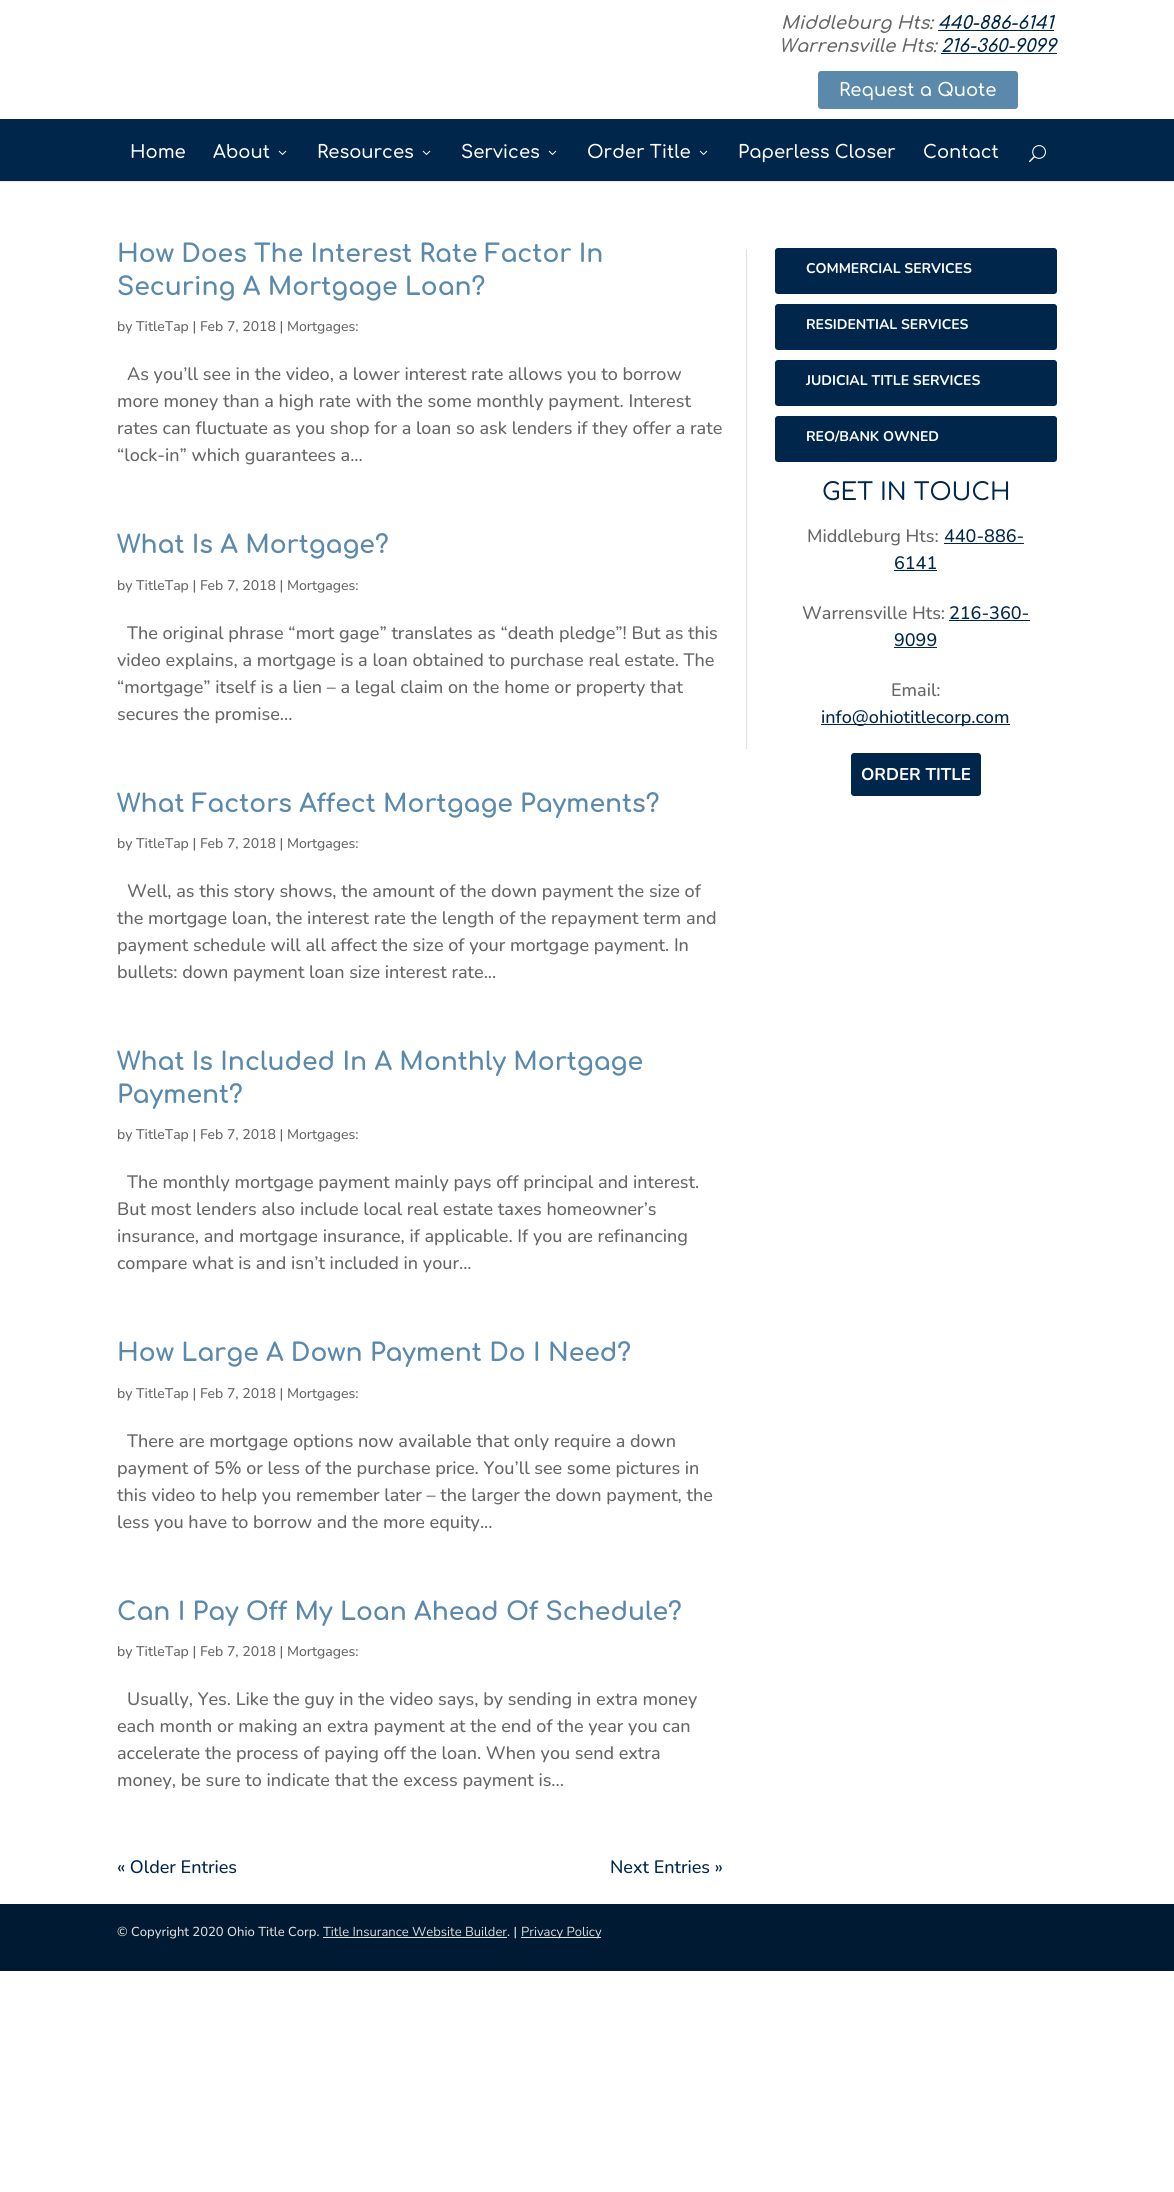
#include <cairo.h>
#include <math.h>
#include <stddef.h>

static cairo_t *ctx;

static void use_color(int r, int g, int b) {
    cairo_set_source_rgb(ctx, r / 255.0, g / 255.0, b / 255.0);
}

static void round_rect(double x, double y, double w, double h, double r) {
    cairo_new_sub_path(ctx);
    cairo_arc(ctx, x + w - r, y + h - r, r, 0, M_PI / 2);
    cairo_arc(ctx, x + r, y + h - r, r, M_PI / 2, M_PI);
    cairo_arc(ctx, x + r, y + r, r, M_PI, 1.5 * M_PI);
    cairo_arc(ctx, x + w - r, y + r, r, 1.5 * M_PI, 2 * M_PI);
    cairo_close_path(ctx);
}

static void picture(const char *path, double x, double y, double w, double h) {
    cairo_surface_t *image = cairo_image_surface_create_from_png(path);
    cairo_save(ctx);
    cairo_set_source_surface(ctx, image, x, y);
    cairo_rectangle(ctx, x, y, w, h);
    cairo_fill(ctx);
    cairo_restore(ctx);
    cairo_surface_destroy(image);
}

int main(void) {
    cairo_surface_t *surface = cairo_image_surface_create(CAIRO_FORMAT_RGB24, 1174, 2192);
    ctx = cairo_create(surface);
    cairo_font_options_t *options = cairo_font_options_create();
    cairo_font_options_set_hint_metrics(options, CAIRO_HINT_METRICS_OFF);
    cairo_font_options_set_hint_style(options, CAIRO_HINT_STYLE_NONE);
    cairo_set_font_options(ctx, options);
    cairo_set_miter_limit(ctx, 4);
    use_color(255, 255, 255);
    cairo_paint(ctx);
    cairo_select_font_face(ctx, "Comfortaa SemiBold", CAIRO_FONT_SLANT_ITALIC, CAIRO_FONT_WEIGHT_NORMAL);
    cairo_set_font_size(ctx, 18);
    use_color(102, 102, 102);
    cairo_move_to(ctx, 781, 29);
    cairo_show_text(ctx, "Middleburg Hts:");
    use_color(0, 38, 75);
    cairo_rectangle(ctx, 938, 30, 116, 1);
    cairo_fill(ctx);
    cairo_move_to(ctx, 938, 29);
    cairo_show_text(ctx, "440-886-6141");
    use_color(102, 102, 102);
    cairo_move_to(ctx, 779, 52);
    cairo_show_text(ctx, "Warrensville Hts:");
    use_color(0, 38, 75);
    cairo_move_to(ctx, 941, 52);
    cairo_show_text(ctx, "216-360-9099");
    cairo_rectangle(ctx, 941, 53, 116, 1);
    cairo_fill(ctx);
    use_color(91, 137, 172);
    round_rect(818, 71, 200, 38, 3);
    cairo_fill(ctx);
    cairo_select_font_face(ctx, "Comfortaa SemiBold", CAIRO_FONT_SLANT_NORMAL, CAIRO_FONT_WEIGHT_NORMAL);
    use_color(255, 255, 255);
    cairo_move_to(ctx, 839, 96);
    cairo_show_text(ctx, "Request a Quote");
    use_color(230, 230, 230);
    cairo_rectangle(ctx, 0, 181, 1174, 1);
    cairo_fill(ctx);
    use_color(0, 38, 75);
    cairo_rectangle(ctx, 0, 119, 1174, 62);
    cairo_fill(ctx);
    use_color(255, 255, 255);
    cairo_move_to(ctx, 130, 158);
    cairo_show_text(ctx, "Home");
    cairo_move_to(ctx, 213, 158);
    cairo_show_text(ctx, "About");
    picture("img1.png", 278, 150, 9, 5);
    cairo_move_to(ctx, 317, 158);
    cairo_show_text(ctx, "Resources");
    picture("img1.png", 422, 150, 9, 5);
    cairo_move_to(ctx, 461, 158);
    cairo_show_text(ctx, "Services");
    picture("img1.png", 548, 150, 9, 5);
    cairo_move_to(ctx, 587, 158);
    cairo_show_text(ctx, "Order Title");
    picture("img1.png", 699, 150, 9, 5);
    cairo_move_to(ctx, 738, 158);
    cairo_show_text(ctx, "Paperless Closer");
    cairo_move_to(ctx, 923, 158);
    cairo_show_text(ctx, "Contact");
    picture("img2.png", 1029, 145, 17, 18);
    cairo_select_font_face(ctx, "Comfortaa", CAIRO_FONT_SLANT_NORMAL, CAIRO_FONT_WEIGHT_BOLD);
    cairo_set_font_size(ctx, 25);
    use_color(91, 137, 172);
    cairo_move_to(ctx, 117, 262);
    cairo_show_text(ctx, "How Does The Interest Rate Factor In");
    cairo_move_to(ctx, 117, 295);
    cairo_show_text(ctx, "Securing A Mortgage Loan?");
    cairo_select_font_face(ctx, "Nunito Medium", CAIRO_FONT_SLANT_NORMAL, CAIRO_FONT_WEIGHT_NORMAL);
    cairo_set_font_size(ctx, 14);
    use_color(102, 102, 102);
    cairo_move_to(ctx, 117, 331);
    cairo_show_text(ctx, "by TitleTap | Feb 7, 2018 | Mortgages:");
    cairo_set_font_size(ctx, 18);
    cairo_move_to(ctx, 127, 380);
    cairo_show_text(ctx, "As you’ll see in the video, a lower interest rate allows you to borrow");
    cairo_move_to(ctx, 117, 407);
    cairo_show_text(ctx, "more money than a high rate with the some monthly payment. Interest");
    cairo_move_to(ctx, 117, 434);
    cairo_show_text(ctx, "rates can fluctuate as you shop for a loan so ask lenders if they offer a rate");
    cairo_move_to(ctx, 117, 461);
    cairo_show_text(ctx, "“lock-in” which guarantees a...");
    cairo_select_font_face(ctx, "Comfortaa", CAIRO_FONT_SLANT_NORMAL, CAIRO_FONT_WEIGHT_BOLD);
    cairo_set_font_size(ctx, 25);
    use_color(91, 137, 172);
    cairo_move_to(ctx, 117, 553);
    cairo_show_text(ctx, "What Is A Mortgage?");
    cairo_select_font_face(ctx, "Nunito Medium", CAIRO_FONT_SLANT_NORMAL, CAIRO_FONT_WEIGHT_NORMAL);
    cairo_set_font_size(ctx, 14);
    use_color(102, 102, 102);
    cairo_move_to(ctx, 117, 590);
    cairo_show_text(ctx, "by TitleTap | Feb 7, 2018 | Mortgages:");
    cairo_set_font_size(ctx, 18);
    cairo_move_to(ctx, 127, 639);
    cairo_show_text(ctx, "The original phrase “mort gage” translates as “death pledge”! But as this");
    cairo_move_to(ctx, 117, 666);
    cairo_show_text(ctx, "video explains, a mortgage is a loan obtained to purchase real estate. The");
    cairo_move_to(ctx, 117, 693);
    cairo_show_text(ctx, "“mortgage” itself is a lien – a legal claim on the home or property that");
    cairo_move_to(ctx, 117, 720);
    cairo_show_text(ctx, "secures the promise...");
    cairo_select_font_face(ctx, "Comfortaa", CAIRO_FONT_SLANT_NORMAL, CAIRO_FONT_WEIGHT_BOLD);
    cairo_set_font_size(ctx, 25);
    use_color(91, 137, 172);
    cairo_move_to(ctx, 117, 812);
    cairo_show_text(ctx, "What Factors Affect Mortgage Payments?");
    cairo_select_font_face(ctx, "Nunito Medium", CAIRO_FONT_SLANT_NORMAL, CAIRO_FONT_WEIGHT_NORMAL);
    cairo_set_font_size(ctx, 14);
    use_color(102, 102, 102);
    cairo_move_to(ctx, 117, 848);
    cairo_show_text(ctx, "by TitleTap | Feb 7, 2018 | Mortgages:");
    cairo_set_font_size(ctx, 18);
    cairo_move_to(ctx, 127, 897);
    cairo_show_text(ctx, "Well, as this story shows, the amount of the down payment the size of");
    cairo_move_to(ctx, 117, 924);
    cairo_show_text(ctx, "the mortgage loan, the interest rate the length of the repayment term and");
    cairo_move_to(ctx, 117, 951);
    cairo_show_text(ctx, "payment schedule will all affect the size of your mortgage payment. In");
    cairo_move_to(ctx, 117, 978);
    cairo_show_text(ctx, "bullets: down payment loan size interest rate...");
    cairo_select_font_face(ctx, "Comfortaa", CAIRO_FONT_SLANT_NORMAL, CAIRO_FONT_WEIGHT_BOLD);
    cairo_set_font_size(ctx, 25);
    use_color(91, 137, 172);
    cairo_move_to(ctx, 117, 1070);
    cairo_show_text(ctx, "What Is Included In A Monthly Mortgage");
    cairo_move_to(ctx, 117, 1103);
    cairo_show_text(ctx, "Payment?");
    cairo_select_font_face(ctx, "Nunito Medium", CAIRO_FONT_SLANT_NORMAL, CAIRO_FONT_WEIGHT_NORMAL);
    cairo_set_font_size(ctx, 14);
    use_color(102, 102, 102);
    cairo_move_to(ctx, 117, 1139);
    cairo_show_text(ctx, "by TitleTap | Feb 7, 2018 | Mortgages:");
    cairo_set_font_size(ctx, 18);
    cairo_move_to(ctx, 127, 1188);
    cairo_show_text(ctx, "The monthly mortgage payment mainly pays off principal and interest.");
    cairo_move_to(ctx, 117, 1215);
    cairo_show_text(ctx, "But most lenders also include local real estate taxes homeowner’s");
    cairo_move_to(ctx, 117, 1242);
    cairo_show_text(ctx, "insurance, and mortgage insurance, if applicable. If you are refinancing");
    cairo_move_to(ctx, 117, 1269);
    cairo_show_text(ctx, "compare what is and isn’t included in your...");
    cairo_select_font_face(ctx, "Comfortaa", CAIRO_FONT_SLANT_NORMAL, CAIRO_FONT_WEIGHT_BOLD);
    cairo_set_font_size(ctx, 25);
    use_color(91, 137, 172);
    cairo_move_to(ctx, 117, 1361);
    cairo_show_text(ctx, "How Large A Down Payment Do I Need?");
    cairo_select_font_face(ctx, "Nunito Medium", CAIRO_FONT_SLANT_NORMAL, CAIRO_FONT_WEIGHT_NORMAL);
    cairo_set_font_size(ctx, 14);
    use_color(102, 102, 102);
    cairo_move_to(ctx, 117, 1398);
    cairo_show_text(ctx, "by TitleTap | Feb 7, 2018 | Mortgages:");
    cairo_set_font_size(ctx, 18);
    cairo_move_to(ctx, 127, 1447);
    cairo_show_text(ctx, "There are mortgage options now available that only require a down");
    cairo_move_to(ctx, 117, 1474);
    cairo_show_text(ctx, "payment of 5% or less of the purchase price. You’ll see some pictures in");
    cairo_move_to(ctx, 117, 1501);
    cairo_show_text(ctx, "this video to help you remember later – the larger the down payment, the");
    cairo_move_to(ctx, 117, 1528);
    cairo_show_text(ctx, "less you have to borrow and the more equity...");
    cairo_select_font_face(ctx, "Comfortaa", CAIRO_FONT_SLANT_NORMAL, CAIRO_FONT_WEIGHT_BOLD);
    cairo_set_font_size(ctx, 25);
    use_color(91, 137, 172);
    cairo_move_to(ctx, 117, 1620);
    cairo_show_text(ctx, "Can I Pay Off My Loan Ahead Of Schedule?");
    cairo_select_font_face(ctx, "Nunito Medium", CAIRO_FONT_SLANT_NORMAL, CAIRO_FONT_WEIGHT_NORMAL);
    cairo_set_font_size(ctx, 14);
    use_color(102, 102, 102);
    cairo_move_to(ctx, 117, 1656);
    cairo_show_text(ctx, "by TitleTap | Feb 7, 2018 | Mortgages:");
    cairo_set_font_size(ctx, 18);
    cairo_move_to(ctx, 127, 1705);
    cairo_show_text(ctx, "Usually, Yes. Like the guy in the video says, by sending in extra money");
    cairo_move_to(ctx, 117, 1732);
    cairo_show_text(ctx, "each month or making an extra payment at the end of the year you can");
    cairo_move_to(ctx, 117, 1759);
    cairo_show_text(ctx, "accelerate the process of paying off the loan. When you send extra");
    cairo_move_to(ctx, 117, 1786);
    cairo_show_text(ctx, "money, be sure to indicate that the excess payment is...");
    use_color(0, 38, 75);
    cairo_move_to(ctx, 117, 1873);
    cairo_show_text(ctx, "« Older Entries");
    cairo_move_to(ctx, 610, 1873);
    cairo_show_text(ctx, "Next Entries »");
    round_rect(775, 248, 282, 46, 3);
    cairo_fill(ctx);
    cairo_select_font_face(ctx, "Nunito", CAIRO_FONT_SLANT_NORMAL, CAIRO_FONT_WEIGHT_BOLD);
    cairo_set_font_size(ctx, 14);
    use_color(255, 255, 255);
    cairo_move_to(ctx, 806, 273);
    cairo_show_text(ctx, "COMMERCIAL SERVICES");
    use_color(0, 38, 75);
    round_rect(775, 304, 282, 46, 3);
    cairo_fill(ctx);
    use_color(255, 255, 255);
    cairo_move_to(ctx, 806, 329);
    cairo_show_text(ctx, "RESIDENTIAL SERVICES");
    use_color(0, 38, 75);
    round_rect(775, 360, 282, 46, 3);
    cairo_fill(ctx);
    use_color(255, 255, 255);
    cairo_move_to(ctx, 806, 385);
    cairo_show_text(ctx, "JUDICIAL TITLE SERVICES");
    use_color(0, 38, 75);
    round_rect(775, 416, 282, 46, 3);
    cairo_fill(ctx);
    use_color(255, 255, 255);
    cairo_move_to(ctx, 806, 441);
    cairo_show_text(ctx, "REO/BANK OWNED");
    cairo_select_font_face(ctx, "Comfortaa Medium", CAIRO_FONT_SLANT_NORMAL, CAIRO_FONT_WEIGHT_NORMAL);
    cairo_set_font_size(ctx, 24);
    use_color(0, 38, 75);
    cairo_move_to(ctx, 822, 500);
    cairo_show_text(ctx, "GET IN TOUCH");
    cairo_select_font_face(ctx, "Nunito Medium", CAIRO_FONT_SLANT_NORMAL, CAIRO_FONT_WEIGHT_NORMAL);
    cairo_set_font_size(ctx, 18);
    use_color(102, 102, 102);
    cairo_move_to(ctx, 807, 542);
    cairo_show_text(ctx, "Middleburg Hts:");
    use_color(0, 38, 75);
    cairo_move_to(ctx, 944, 542);
    cairo_show_text(ctx, "440-886-");
    cairo_rectangle(ctx, 944, 543, 80, 1);
    cairo_fill(ctx);
    cairo_move_to(ctx, 894, 569);
    cairo_show_text(ctx, "6141");
    cairo_rectangle(ctx, 894, 570, 43, 1);
    cairo_fill(ctx);
    use_color(102, 102, 102);
    cairo_move_to(ctx, 802, 619);
    cairo_show_text(ctx, "Warrensville Hts:");
    use_color(0, 38, 75);
    cairo_move_to(ctx, 949, 619);
    cairo_show_text(ctx, "216-360-");
    cairo_rectangle(ctx, 949, 620, 81, 1);
    cairo_fill(ctx);
    cairo_move_to(ctx, 894, 646);
    cairo_show_text(ctx, "9099");
    cairo_rectangle(ctx, 894, 647, 43, 1);
    cairo_fill(ctx);
    use_color(102, 102, 102);
    cairo_move_to(ctx, 891, 696);
    cairo_show_text(ctx, "Email:");
    use_color(0, 38, 75);
    cairo_rectangle(ctx, 821, 724, 189, 1);
    cairo_fill(ctx);
    cairo_move_to(ctx, 821, 723);
    cairo_show_text(ctx, "info@ohiotitlecorp.com");
    round_rect(851, 753, 130, 43, 3);
    cairo_fill(ctx);
    cairo_select_font_face(ctx, "Nunito", CAIRO_FONT_SLANT_NORMAL, CAIRO_FONT_WEIGHT_BOLD);
    cairo_set_font_size(ctx, 17);
    use_color(255, 255, 255);
    cairo_move_to(ctx, 861, 780);
    cairo_show_text(ctx, "ORDER TITLE");
    use_color(226, 226, 226);
    cairo_rectangle(ctx, 746, 249, 1, 500);
    cairo_fill(ctx);
    use_color(0, 26, 51);
    cairo_rectangle(ctx, 0, 1904, 1174, 67);
    cairo_fill(ctx);
    cairo_select_font_face(ctx, "Nunito Medium", CAIRO_FONT_SLANT_NORMAL, CAIRO_FONT_WEIGHT_NORMAL);
    cairo_set_font_size(ctx, 13);
    use_color(221, 221, 221);
    cairo_move_to(ctx, 117, 1936);
    cairo_show_text(ctx, "© Copyright 2020 Ohio Title Corp.");
    cairo_select_font_face(ctx, "Nunito", CAIRO_FONT_SLANT_NORMAL, CAIRO_FONT_WEIGHT_NORMAL);
    cairo_move_to(ctx, 323, 1936);
    cairo_show_text(ctx, "Title Insurance Website Builder");
    cairo_rectangle(ctx, 323, 1937, 184, 1);
    cairo_fill(ctx);
    cairo_select_font_face(ctx, "Nunito Medium", CAIRO_FONT_SLANT_NORMAL, CAIRO_FONT_WEIGHT_NORMAL);
    cairo_move_to(ctx, 507, 1936);
    cairo_show_text(ctx, ". |");
    cairo_rectangle(ctx, 521, 1937, 80, 1);
    cairo_fill(ctx);
    cairo_select_font_face(ctx, "Nunito", CAIRO_FONT_SLANT_NORMAL, CAIRO_FONT_WEIGHT_NORMAL);
    cairo_move_to(ctx, 521, 1936);
    cairo_show_text(ctx, "Privacy Policy");
    cairo_surface_write_to_png(surface, "result.png");
    cairo_font_options_destroy(options);
    cairo_destroy(ctx);
    cairo_surface_destroy(surface);
    return 0;
}
